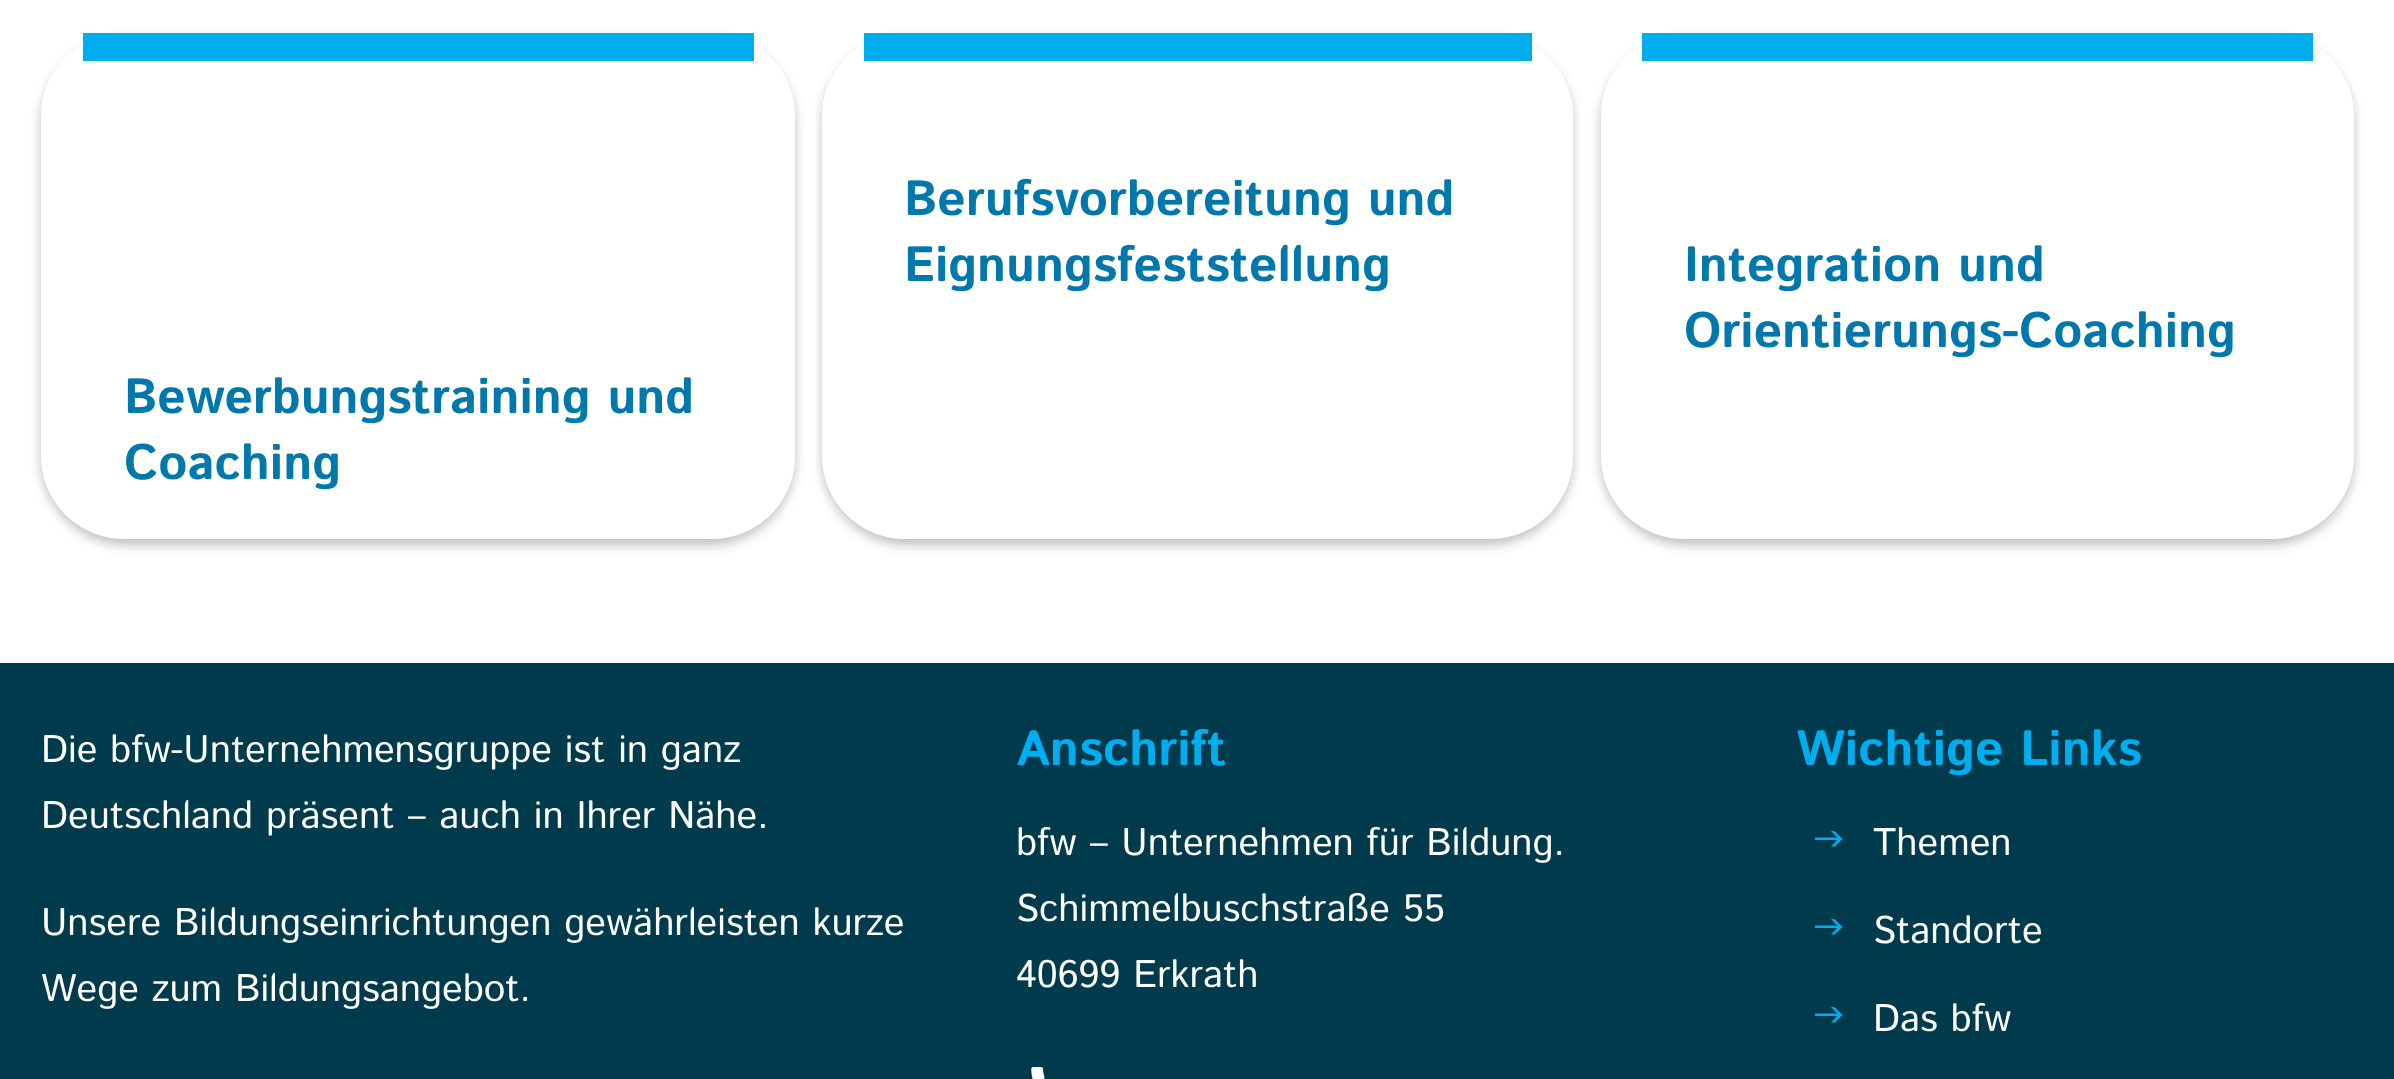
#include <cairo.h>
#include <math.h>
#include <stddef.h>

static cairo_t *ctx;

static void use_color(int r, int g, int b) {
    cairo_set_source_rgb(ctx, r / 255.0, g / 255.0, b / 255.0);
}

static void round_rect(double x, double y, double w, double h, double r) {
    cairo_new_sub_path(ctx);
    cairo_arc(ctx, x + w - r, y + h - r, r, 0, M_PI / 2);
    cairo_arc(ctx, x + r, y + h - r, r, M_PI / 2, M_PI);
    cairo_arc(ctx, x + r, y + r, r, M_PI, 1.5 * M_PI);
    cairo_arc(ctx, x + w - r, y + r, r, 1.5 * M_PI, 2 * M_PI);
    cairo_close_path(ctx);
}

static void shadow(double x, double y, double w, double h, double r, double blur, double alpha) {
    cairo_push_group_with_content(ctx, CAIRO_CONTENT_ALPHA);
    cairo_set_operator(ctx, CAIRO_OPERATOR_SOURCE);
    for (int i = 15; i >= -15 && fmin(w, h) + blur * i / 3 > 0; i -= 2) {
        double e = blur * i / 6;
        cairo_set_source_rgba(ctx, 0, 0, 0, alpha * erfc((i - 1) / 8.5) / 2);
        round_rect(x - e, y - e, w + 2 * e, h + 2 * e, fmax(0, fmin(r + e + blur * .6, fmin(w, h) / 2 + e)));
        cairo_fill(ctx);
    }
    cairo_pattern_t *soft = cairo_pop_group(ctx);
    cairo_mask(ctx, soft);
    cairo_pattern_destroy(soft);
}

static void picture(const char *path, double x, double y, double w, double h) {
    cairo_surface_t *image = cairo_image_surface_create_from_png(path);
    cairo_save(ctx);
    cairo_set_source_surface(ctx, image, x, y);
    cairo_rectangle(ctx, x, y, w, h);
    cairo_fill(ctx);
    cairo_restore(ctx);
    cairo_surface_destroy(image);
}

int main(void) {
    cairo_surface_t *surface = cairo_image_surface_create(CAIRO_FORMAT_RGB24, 2394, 1079);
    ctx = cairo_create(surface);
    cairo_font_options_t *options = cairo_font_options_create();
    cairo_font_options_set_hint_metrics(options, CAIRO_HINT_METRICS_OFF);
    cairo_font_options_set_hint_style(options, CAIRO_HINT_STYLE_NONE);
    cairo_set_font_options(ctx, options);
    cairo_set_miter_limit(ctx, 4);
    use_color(255, 255, 255);
    cairo_paint(ctx);
    use_color(0, 0, 0);
    shadow(822, 39, 751, 506, 83, 5.5, 0.25);
    use_color(255, 255, 255);
    round_rect(822, 33, 751, 506, 83);
    cairo_fill(ctx);
    use_color(0, 173, 238);
    cairo_rectangle(ctx, 864, 33, 668, 28);
    cairo_fill(ctx);
    cairo_select_font_face(ctx, "Istok Web", CAIRO_FONT_SLANT_NORMAL, CAIRO_FONT_WEIGHT_BOLD);
    cairo_set_font_size(ctx, 49.5);
    use_color(0, 120, 171);
    cairo_move_to(ctx, 904, 215);
    cairo_show_text(ctx, "Berufsvorbereitung und");
    cairo_move_to(ctx, 904, 281);
    cairo_show_text(ctx, "Eignungsfeststellung");
    use_color(0, 0, 0);
    shadow(1601, 39, 753, 506, 83, 5.5, 0.25);
    use_color(255, 255, 255);
    round_rect(1601, 33, 753, 506, 83);
    cairo_fill(ctx);
    use_color(0, 173, 238);
    cairo_rectangle(ctx, 1642, 33, 671, 28);
    cairo_fill(ctx);
    use_color(0, 120, 171);
    cairo_move_to(ctx, 1684, 281);
    cairo_show_text(ctx, "Integration und");
    cairo_move_to(ctx, 1684, 347);
    cairo_show_text(ctx, "Orientierungs-Coaching");
    use_color(0, 0, 0);
    shadow(41, 39, 754, 506, 83, 5.5, 0.25);
    use_color(255, 255, 255);
    round_rect(41, 33, 754, 506, 83);
    cairo_fill(ctx);
    use_color(0, 173, 238);
    cairo_rectangle(ctx, 83, 33, 671, 28);
    cairo_fill(ctx);
    use_color(0, 120, 171);
    cairo_move_to(ctx, 124, 413);
    cairo_show_text(ctx, "Bewerbungstraining und");
    cairo_move_to(ctx, 124, 479);
    cairo_show_text(ctx, "Coaching");
    use_color(0, 58, 77);
    cairo_rectangle(ctx, 0, 663, 2394, 416);
    cairo_fill(ctx);
    cairo_select_font_face(ctx, "Istok Web", CAIRO_FONT_SLANT_NORMAL, CAIRO_FONT_WEIGHT_NORMAL);
    cairo_set_font_size(ctx, 38.5);
    use_color(255, 255, 255);
    cairo_move_to(ctx, 41, 762);
    cairo_show_text(ctx, "Die bfw-Unternehmensgruppe ist in ganz");
    cairo_move_to(ctx, 41, 828);
    cairo_show_text(ctx, "Deutschland präsent – auch in Ihrer Nähe.");
    cairo_move_to(ctx, 41, 935);
    cairo_show_text(ctx, "Unsere Bildungseinrichtungen gewährleisten kurze");
    cairo_move_to(ctx, 41, 1001);
    cairo_show_text(ctx, "Wege zum Bildungsangebot.");
    cairo_select_font_face(ctx, "Istok Web", CAIRO_FONT_SLANT_NORMAL, CAIRO_FONT_WEIGHT_BOLD);
    cairo_set_font_size(ctx, 49.5);
    use_color(0, 173, 238);
    cairo_move_to(ctx, 1016, 765);
    cairo_show_text(ctx, "Anschrift");
    cairo_select_font_face(ctx, "Istok Web", CAIRO_FONT_SLANT_NORMAL, CAIRO_FONT_WEIGHT_NORMAL);
    cairo_set_font_size(ctx, 38.5);
    use_color(255, 255, 255);
    cairo_move_to(ctx, 1016, 855);
    cairo_show_text(ctx, "bfw – Unternehmen für Bildung.");
    cairo_move_to(ctx, 1016, 921);
    cairo_show_text(ctx, "Schimmelbuschstraße 55");
    cairo_move_to(ctx, 1016, 987);
    cairo_show_text(ctx, "40699 Erkrath");
    picture("img1.png", 1031, 1067, 14, 12);
    cairo_select_font_face(ctx, "Istok Web", CAIRO_FONT_SLANT_NORMAL, CAIRO_FONT_WEIGHT_BOLD);
    cairo_set_font_size(ctx, 49.5);
    use_color(0, 173, 238);
    cairo_move_to(ctx, 1796, 765);
    cairo_show_text(ctx, "Wichtige Links");
    cairo_new_path(ctx);
    cairo_move_to(ctx, 1834.5, 846.5);
    cairo_line_to(ctx, 1831, 846.5);
    cairo_line_to(ctx, 1837, 840);
    cairo_line_to(ctx, 1815, 840);
    cairo_line_to(ctx, 1815, 837.5);
    cairo_line_to(ctx, 1837, 837.5);
    cairo_line_to(ctx, 1831, 831);
    cairo_line_to(ctx, 1834.5, 831);
    cairo_line_to(ctx, 1842.5, 839);
    cairo_close_path(ctx);
    cairo_fill(ctx);
    cairo_select_font_face(ctx, "Istok Web", CAIRO_FONT_SLANT_NORMAL, CAIRO_FONT_WEIGHT_NORMAL);
    cairo_set_font_size(ctx, 38.5);
    use_color(255, 255, 255);
    cairo_move_to(ctx, 1873, 855);
    cairo_show_text(ctx, "Themen");
    use_color(0, 173, 238);
    cairo_new_path(ctx);
    cairo_move_to(ctx, 1834.5, 934.5);
    cairo_line_to(ctx, 1831, 934.5);
    cairo_line_to(ctx, 1837, 928);
    cairo_line_to(ctx, 1815, 928);
    cairo_line_to(ctx, 1815, 925.5);
    cairo_line_to(ctx, 1837, 925.5);
    cairo_line_to(ctx, 1831, 919);
    cairo_line_to(ctx, 1834.5, 919);
    cairo_line_to(ctx, 1842.5, 927);
    cairo_close_path(ctx);
    cairo_fill(ctx);
    use_color(255, 255, 255);
    cairo_move_to(ctx, 1873, 943);
    cairo_show_text(ctx, "Standorte");
    use_color(0, 173, 238);
    cairo_new_path(ctx);
    cairo_move_to(ctx, 1834.5, 1022.5);
    cairo_line_to(ctx, 1831, 1022.5);
    cairo_line_to(ctx, 1837, 1016);
    cairo_line_to(ctx, 1815, 1016);
    cairo_line_to(ctx, 1815, 1013.5);
    cairo_line_to(ctx, 1837, 1013.5);
    cairo_line_to(ctx, 1831, 1007);
    cairo_line_to(ctx, 1834.5, 1007);
    cairo_line_to(ctx, 1842.5, 1015);
    cairo_close_path(ctx);
    cairo_fill(ctx);
    use_color(255, 255, 255);
    cairo_move_to(ctx, 1873, 1031);
    cairo_show_text(ctx, "Das bfw");
    cairo_surface_write_to_png(surface, "result.png");
    cairo_font_options_destroy(options);
    cairo_destroy(ctx);
    cairo_surface_destroy(surface);
    return 0;
}
